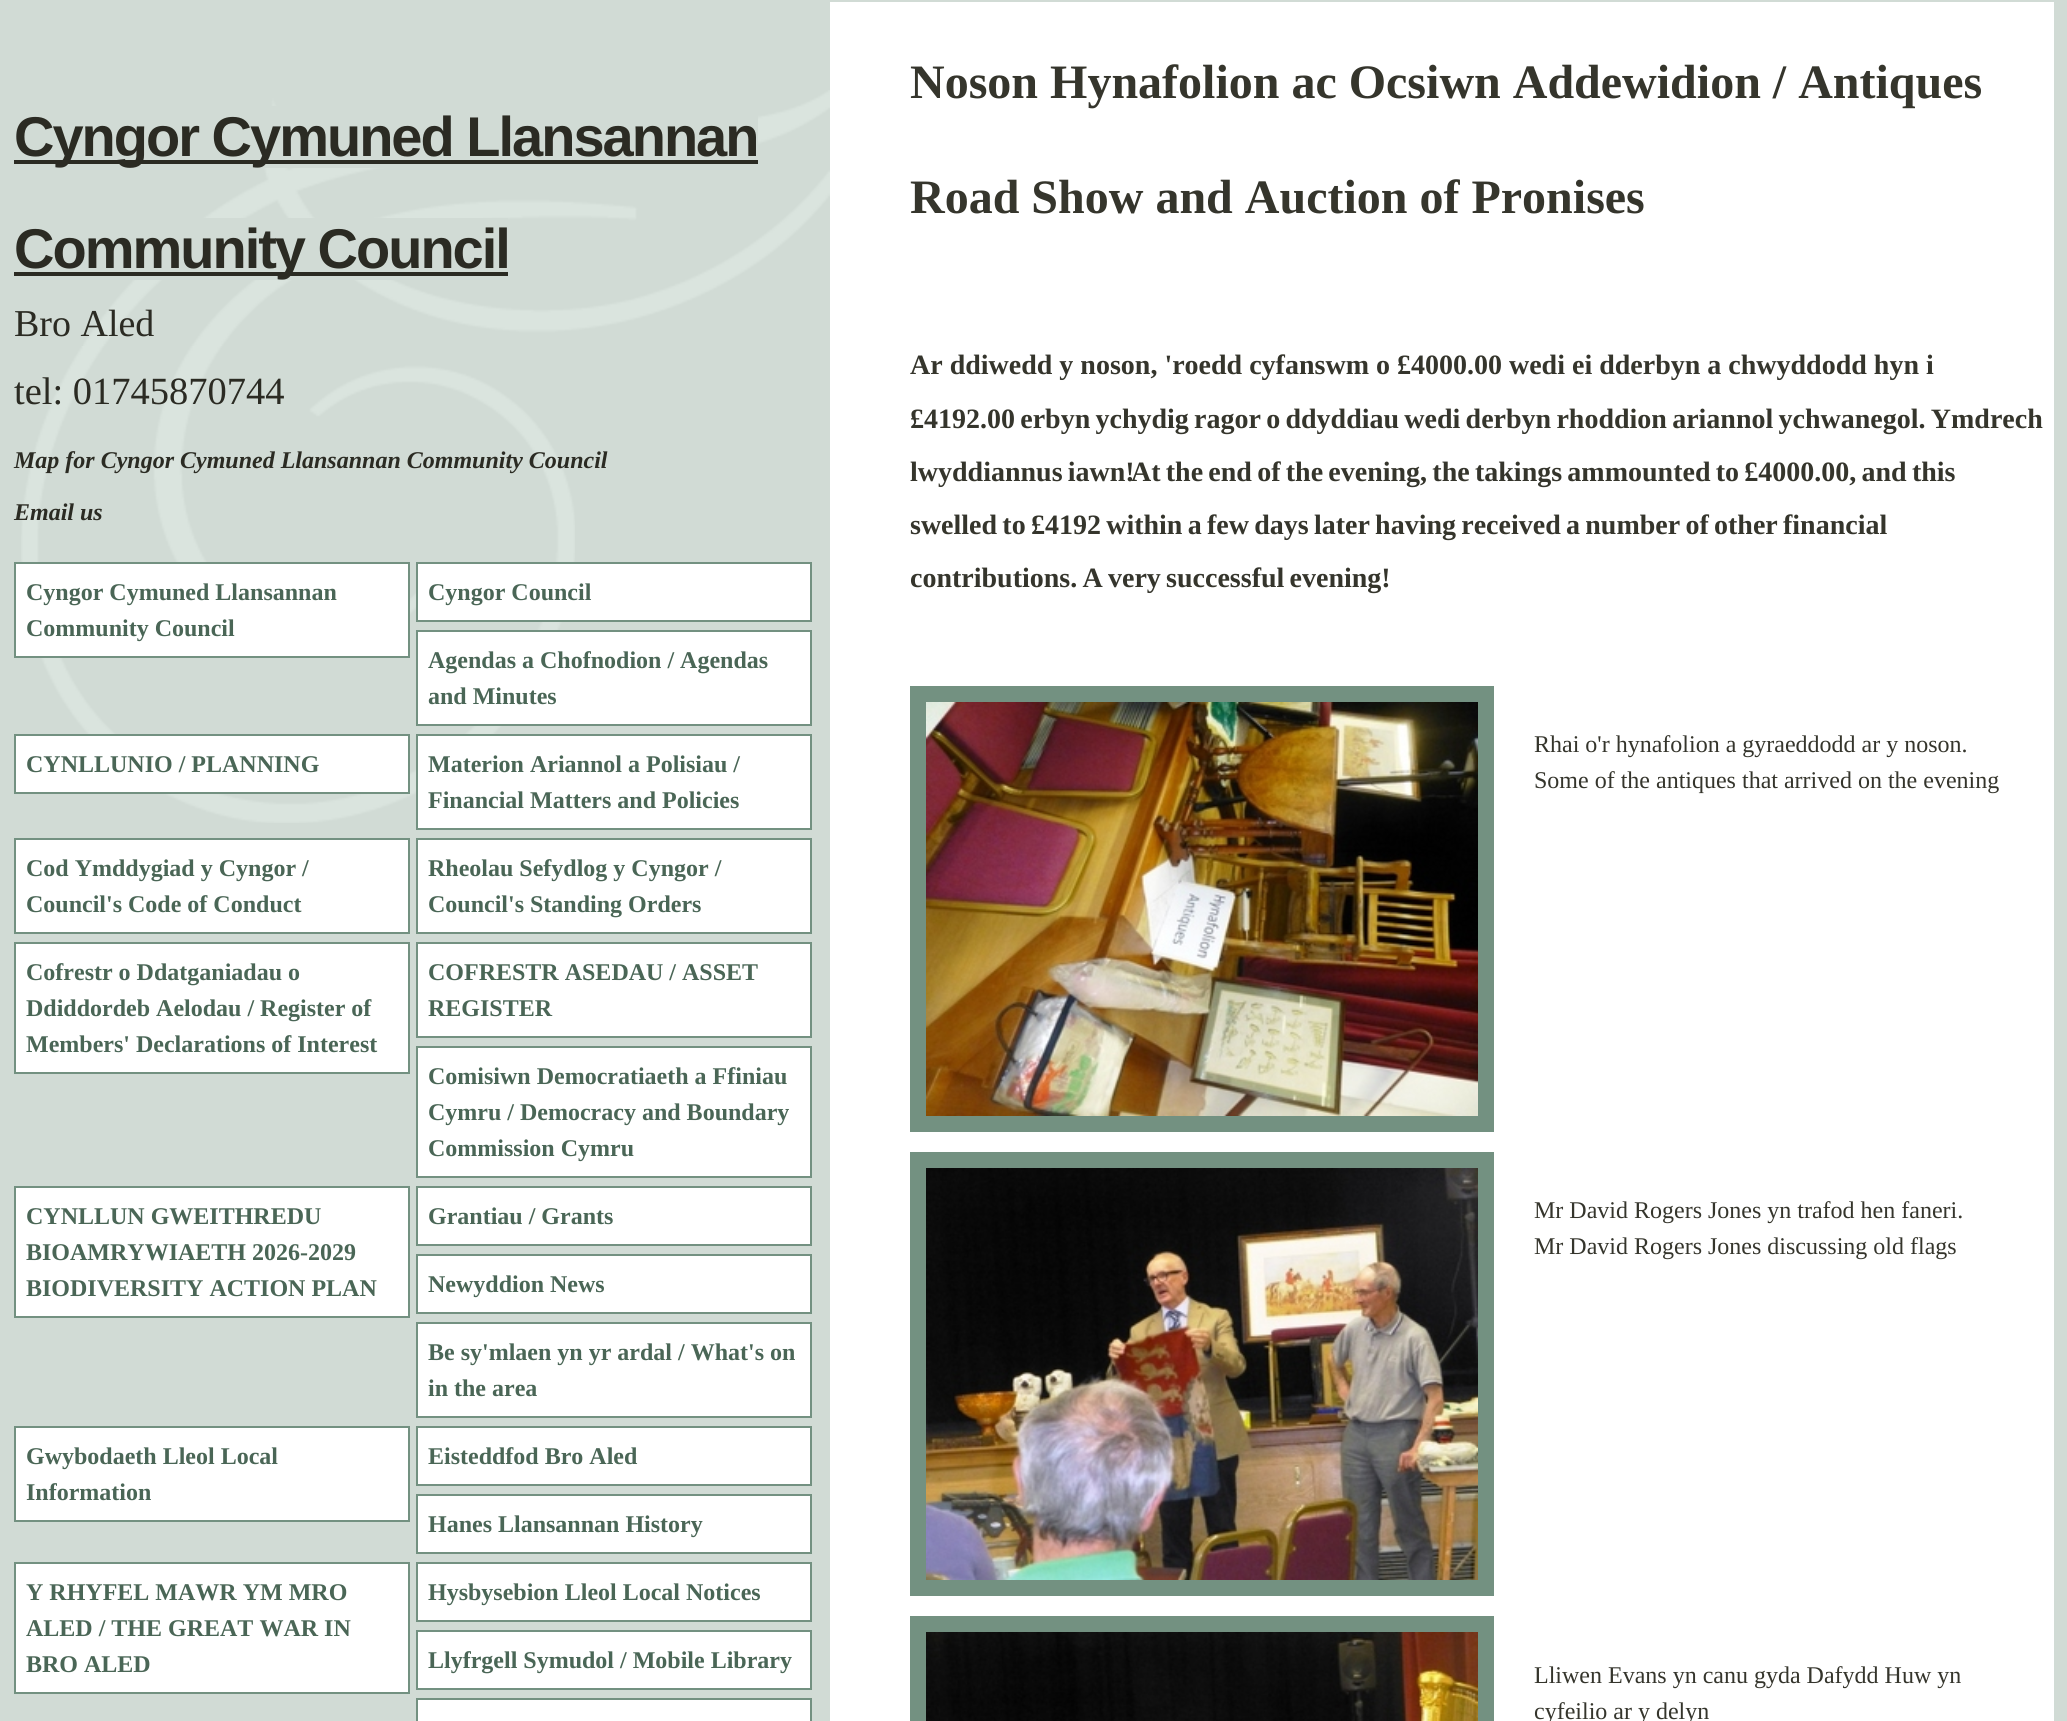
#include <cairo.h>
#include <math.h>
#include <stddef.h>

static cairo_t *ctx;

static void use_color(int r, int g, int b) {
    cairo_set_source_rgb(ctx, r / 255.0, g / 255.0, b / 255.0);
}

static void spaced_text(double x, double y, const char *s, double letter, double word) {
    cairo_move_to(ctx, x, y);
    while (*s) {
        char ch[5] = {0};
        int n = 0;
        do ch[n++] = *s++; while ((*s & 0xC0) == 0x80);
        cairo_show_text(ctx, ch);
        cairo_rel_move_to(ctx, letter + word * (*ch == ' '), 0);
    }
}

static void picture(const char *path, double x, double y, double w, double h) {
    cairo_surface_t *image = cairo_image_surface_create_from_png(path);
    cairo_save(ctx);
    cairo_set_source_surface(ctx, image, x, y);
    cairo_rectangle(ctx, x, y, w, h);
    cairo_fill(ctx);
    cairo_restore(ctx);
    cairo_surface_destroy(image);
}

int main(void) {
    cairo_surface_t *surface = cairo_image_surface_create(CAIRO_FORMAT_RGB24, 2067, 1721);
    ctx = cairo_create(surface);
    cairo_font_options_t *options = cairo_font_options_create();
    cairo_font_options_set_hint_metrics(options, CAIRO_HINT_METRICS_OFF);
    cairo_font_options_set_hint_style(options, CAIRO_HINT_STYLE_NONE);
    cairo_set_font_options(ctx, options);
    cairo_set_miter_limit(ctx, 4);
    use_color(209, 219, 213);
    cairo_paint(ctx);
    use_color(255, 255, 255);
    cairo_rectangle(ctx, 830, 2, 1224, 1719);
    cairo_fill(ctx);
    picture("img1.png", 83, 90, 747, 256);
    use_color(209, 219, 213);
    cairo_rectangle(ctx, 264, 106, 494, 62);
    cairo_fill(ctx);
    use_color(43, 43, 35);
    cairo_rectangle(ctx, 14, 160, 744, 4);
    cairo_fill(ctx);
    cairo_select_font_face(ctx, "Liberation Sans", CAIRO_FONT_SLANT_NORMAL, CAIRO_FONT_WEIGHT_BOLD);
    cairo_set_font_size(ctx, 56);
    spaced_text(14, 156, "Cyngor Cymuned Llansannan", -2, 0);
    use_color(209, 219, 213);
    cairo_rectangle(ctx, 134, 218, 374, 62);
    cairo_fill(ctx);
    use_color(43, 43, 35);
    cairo_rectangle(ctx, 14, 272, 494, 4);
    cairo_fill(ctx);
    spaced_text(14, 268, "Community Council", -2, 0);
    cairo_select_font_face(ctx, "Liberation Serif", CAIRO_FONT_SLANT_NORMAL, CAIRO_FONT_WEIGHT_NORMAL);
    cairo_set_font_size(ctx, 38);
    cairo_move_to(ctx, 14, 336);
    cairo_show_text(ctx, "Bro Aled");
    cairo_select_font_face(ctx, "Liberation Serif", CAIRO_FONT_SLANT_NORMAL, CAIRO_FONT_WEIGHT_BOLD);
    cairo_set_font_size(ctx, 48);
    use_color(53, 53, 44);
    cairo_move_to(ctx, 910, 98);
    cairo_show_text(ctx, "Noson Hynafolion ac Ocsiwn Addewidion / Antiques");
    cairo_move_to(ctx, 910, 213);
    cairo_show_text(ctx, "Road Show and Auction of Pronises");
    cairo_set_font_size(ctx, 28);
    cairo_move_to(ctx, 910, 374);
    cairo_show_text(ctx, "Ar ddiwedd y noson, 'roedd cyfanswm o £4000.00 wedi ei dderbyn a chwyddodd hyn i");
    spaced_text(910, 428, "£4192.00 erbyn ychydig ragor o ddyddiau wedi derbyn rhoddion ariannol ychwanegol. Ymdrech", 0, -1.75);
    spaced_text(910, 481, "lwyddiannus iawn!", 0, -1.75);
    spaced_text(1131, 481, "At the end of the evening, the takings ammounted to £4000.00, and this", 0, -1.75);
    spaced_text(910, 534, "swelled to £4192 within a few days later having received a number of other financial", 0, -1.75);
    spaced_text(910, 587, "contributions. A very successful evening!", 0, -1.75);
    use_color(115, 145, 129);
    cairo_rectangle(ctx, 910, 686, 584, 446);
    cairo_fill(ctx);
    picture("img2.png", 926, 702, 552, 414);
    cairo_select_font_face(ctx, "Liberation Serif", CAIRO_FONT_SLANT_NORMAL, CAIRO_FONT_WEIGHT_NORMAL);
    cairo_set_font_size(ctx, 24);
    use_color(53, 53, 44);
    cairo_move_to(ctx, 1534, 752);
    cairo_show_text(ctx, "Rhai o'r hynafolion a gyraeddodd ar y noson.");
    cairo_move_to(ctx, 1534, 788);
    cairo_show_text(ctx, "Some of the antiques that arrived on the evening");
    use_color(115, 145, 129);
    cairo_rectangle(ctx, 910, 1152, 584, 444);
    cairo_fill(ctx);
    picture("img3.png", 926, 1168, 552, 412);
    use_color(53, 53, 44);
    cairo_move_to(ctx, 1534, 1218);
    cairo_show_text(ctx, "Mr David Rogers Jones yn trafod hen faneri.");
    cairo_move_to(ctx, 1534, 1254);
    cairo_show_text(ctx, "Mr David Rogers Jones discussing old flags");
    use_color(115, 145, 129);
    cairo_rectangle(ctx, 910, 1616, 584, 105);
    cairo_fill(ctx);
    picture("img4.png", 926, 1632, 552, 89);
    use_color(53, 53, 44);
    cairo_move_to(ctx, 1534, 1683);
    cairo_show_text(ctx, "Lliwen Evans yn canu gyda Dafydd Huw yn");
    cairo_move_to(ctx, 1534, 1719);
    cairo_show_text(ctx, "cyfeilio ar y delyn");
    picture("img5.png", 21, 346, 554, 477);
    cairo_set_font_size(ctx, 38.5);
    use_color(43, 43, 35);
    cairo_move_to(ctx, 14, 404);
    cairo_show_text(ctx, "tel: 01745870744");
    cairo_select_font_face(ctx, "Liberation Serif", CAIRO_FONT_SLANT_ITALIC, CAIRO_FONT_WEIGHT_BOLD);
    cairo_set_font_size(ctx, 24);
    cairo_move_to(ctx, 14, 468);
    cairo_show_text(ctx, "Map for Cyngor Cymuned Llansannan Community Council");
    cairo_move_to(ctx, 14, 520);
    cairo_show_text(ctx, "Email us");
    cairo_rectangle(ctx, 15, 563, 394, 94);
    use_color(115, 145, 129);
    cairo_stroke(ctx);
    use_color(255, 255, 255);
    cairo_rectangle(ctx, 16, 564, 392, 92);
    cairo_fill(ctx);
    cairo_select_font_face(ctx, "Liberation Serif", CAIRO_FONT_SLANT_NORMAL, CAIRO_FONT_WEIGHT_BOLD);
    use_color(74, 102, 86);
    cairo_move_to(ctx, 26, 600);
    cairo_show_text(ctx, "Cyngor Cymuned Llansannan");
    cairo_move_to(ctx, 26, 636);
    cairo_show_text(ctx, "Community Council");
    cairo_rectangle(ctx, 417, 563, 394, 58);
    use_color(115, 145, 129);
    cairo_stroke(ctx);
    use_color(255, 255, 255);
    cairo_rectangle(ctx, 418, 564, 392, 56);
    cairo_fill(ctx);
    use_color(74, 102, 86);
    cairo_move_to(ctx, 428, 600);
    cairo_show_text(ctx, "Cyngor Council");
    cairo_rectangle(ctx, 417, 631, 394, 94);
    use_color(115, 145, 129);
    cairo_stroke(ctx);
    use_color(255, 255, 255);
    cairo_rectangle(ctx, 418, 632, 392, 92);
    cairo_fill(ctx);
    use_color(74, 102, 86);
    cairo_move_to(ctx, 428, 668);
    cairo_show_text(ctx, "Agendas a Chofnodion / Agendas");
    cairo_move_to(ctx, 428, 704);
    cairo_show_text(ctx, "and Minutes");
    cairo_rectangle(ctx, 15, 735, 394, 58);
    use_color(115, 145, 129);
    cairo_stroke(ctx);
    use_color(255, 255, 255);
    cairo_rectangle(ctx, 16, 736, 392, 56);
    cairo_fill(ctx);
    use_color(74, 102, 86);
    cairo_move_to(ctx, 26, 772);
    cairo_show_text(ctx, "CYNLLUNIO / PLANNING");
    cairo_rectangle(ctx, 417, 735, 394, 94);
    use_color(115, 145, 129);
    cairo_stroke(ctx);
    use_color(255, 255, 255);
    cairo_rectangle(ctx, 418, 736, 392, 92);
    cairo_fill(ctx);
    use_color(74, 102, 86);
    cairo_move_to(ctx, 428, 772);
    cairo_show_text(ctx, "Materion Ariannol a Polisiau /");
    cairo_move_to(ctx, 428, 808);
    cairo_show_text(ctx, "Financial Matters and Policies");
    cairo_rectangle(ctx, 15, 839, 394, 94);
    use_color(115, 145, 129);
    cairo_stroke(ctx);
    use_color(255, 255, 255);
    cairo_rectangle(ctx, 16, 840, 392, 92);
    cairo_fill(ctx);
    use_color(74, 102, 86);
    cairo_move_to(ctx, 26, 876);
    cairo_show_text(ctx, "Cod Ymddygiad y Cyngor /");
    cairo_move_to(ctx, 26, 912);
    cairo_show_text(ctx, "Council's Code of Conduct");
    cairo_rectangle(ctx, 417, 839, 394, 94);
    use_color(115, 145, 129);
    cairo_stroke(ctx);
    use_color(255, 255, 255);
    cairo_rectangle(ctx, 418, 840, 392, 92);
    cairo_fill(ctx);
    use_color(74, 102, 86);
    cairo_move_to(ctx, 428, 876);
    cairo_show_text(ctx, "Rheolau Sefydlog y Cyngor /");
    cairo_move_to(ctx, 428, 912);
    cairo_show_text(ctx, "Council's Standing Orders");
    cairo_rectangle(ctx, 15, 943, 394, 130);
    use_color(115, 145, 129);
    cairo_stroke(ctx);
    use_color(255, 255, 255);
    cairo_rectangle(ctx, 16, 944, 392, 128);
    cairo_fill(ctx);
    use_color(74, 102, 86);
    cairo_move_to(ctx, 26, 980);
    cairo_show_text(ctx, "Cofrestr o Ddatganiadau o");
    cairo_move_to(ctx, 26, 1016);
    cairo_show_text(ctx, "Ddiddordeb Aelodau / Register of");
    cairo_move_to(ctx, 26, 1052);
    cairo_show_text(ctx, "Members' Declarations of Interest");
    cairo_rectangle(ctx, 417, 943, 394, 94);
    use_color(115, 145, 129);
    cairo_stroke(ctx);
    use_color(255, 255, 255);
    cairo_rectangle(ctx, 418, 944, 392, 92);
    cairo_fill(ctx);
    use_color(74, 102, 86);
    cairo_move_to(ctx, 428, 980);
    cairo_show_text(ctx, "COFRESTR ASEDAU / ASSET");
    cairo_move_to(ctx, 428, 1016);
    cairo_show_text(ctx, "REGISTER");
    cairo_rectangle(ctx, 417, 1047, 394, 130);
    use_color(115, 145, 129);
    cairo_stroke(ctx);
    use_color(255, 255, 255);
    cairo_rectangle(ctx, 418, 1048, 392, 128);
    cairo_fill(ctx);
    use_color(74, 102, 86);
    cairo_move_to(ctx, 428, 1084);
    cairo_show_text(ctx, "Comisiwn Democratiaeth a Ffiniau");
    cairo_move_to(ctx, 428, 1120);
    cairo_show_text(ctx, "Cymru / Democracy and Boundary");
    cairo_move_to(ctx, 428, 1156);
    cairo_show_text(ctx, "Commission Cymru");
    cairo_rectangle(ctx, 15, 1187, 394, 130);
    use_color(115, 145, 129);
    cairo_stroke(ctx);
    use_color(255, 255, 255);
    cairo_rectangle(ctx, 16, 1188, 392, 128);
    cairo_fill(ctx);
    use_color(74, 102, 86);
    cairo_move_to(ctx, 26, 1224);
    cairo_show_text(ctx, "CYNLLUN GWEITHREDU");
    cairo_move_to(ctx, 26, 1260);
    cairo_show_text(ctx, "BIOAMRYWIAETH 2026-2029");
    cairo_move_to(ctx, 26, 1296);
    cairo_show_text(ctx, "BIODIVERSITY ACTION PLAN");
    cairo_rectangle(ctx, 417, 1187, 394, 58);
    use_color(115, 145, 129);
    cairo_stroke(ctx);
    use_color(255, 255, 255);
    cairo_rectangle(ctx, 418, 1188, 392, 56);
    cairo_fill(ctx);
    use_color(74, 102, 86);
    cairo_move_to(ctx, 428, 1224);
    cairo_show_text(ctx, "Grantiau / Grants");
    cairo_rectangle(ctx, 417, 1255, 394, 58);
    use_color(115, 145, 129);
    cairo_stroke(ctx);
    use_color(255, 255, 255);
    cairo_rectangle(ctx, 418, 1256, 392, 56);
    cairo_fill(ctx);
    use_color(74, 102, 86);
    cairo_move_to(ctx, 428, 1292);
    cairo_show_text(ctx, "Newyddion News");
    cairo_rectangle(ctx, 417, 1323, 394, 94);
    use_color(115, 145, 129);
    cairo_stroke(ctx);
    use_color(255, 255, 255);
    cairo_rectangle(ctx, 418, 1324, 392, 92);
    cairo_fill(ctx);
    use_color(74, 102, 86);
    cairo_move_to(ctx, 428, 1360);
    cairo_show_text(ctx, "Be sy'mlaen yn yr ardal / What's on");
    cairo_move_to(ctx, 428, 1396);
    cairo_show_text(ctx, "in the area");
    cairo_rectangle(ctx, 15, 1427, 394, 94);
    use_color(115, 145, 129);
    cairo_stroke(ctx);
    use_color(255, 255, 255);
    cairo_rectangle(ctx, 16, 1428, 392, 92);
    cairo_fill(ctx);
    use_color(74, 102, 86);
    cairo_move_to(ctx, 26, 1464);
    cairo_show_text(ctx, "Gwybodaeth Lleol Local");
    cairo_move_to(ctx, 26, 1500);
    cairo_show_text(ctx, "Information");
    cairo_rectangle(ctx, 417, 1427, 394, 58);
    use_color(115, 145, 129);
    cairo_stroke(ctx);
    use_color(255, 255, 255);
    cairo_rectangle(ctx, 418, 1428, 392, 56);
    cairo_fill(ctx);
    use_color(74, 102, 86);
    cairo_move_to(ctx, 428, 1464);
    cairo_show_text(ctx, "Eisteddfod Bro Aled");
    cairo_rectangle(ctx, 417, 1495, 394, 58);
    use_color(115, 145, 129);
    cairo_stroke(ctx);
    use_color(255, 255, 255);
    cairo_rectangle(ctx, 418, 1496, 392, 56);
    cairo_fill(ctx);
    use_color(74, 102, 86);
    cairo_move_to(ctx, 428, 1532);
    cairo_show_text(ctx, "Hanes Llansannan History");
    cairo_rectangle(ctx, 15, 1563, 394, 130);
    use_color(115, 145, 129);
    cairo_stroke(ctx);
    use_color(255, 255, 255);
    cairo_rectangle(ctx, 16, 1564, 392, 128);
    cairo_fill(ctx);
    use_color(74, 102, 86);
    cairo_move_to(ctx, 26, 1600);
    cairo_show_text(ctx, "Y RHYFEL MAWR YM MRO");
    cairo_move_to(ctx, 26, 1636);
    cairo_show_text(ctx, "ALED / THE GREAT WAR IN");
    cairo_move_to(ctx, 26, 1672);
    cairo_show_text(ctx, "BRO ALED");
    cairo_rectangle(ctx, 417, 1563, 394, 58);
    use_color(115, 145, 129);
    cairo_stroke(ctx);
    use_color(255, 255, 255);
    cairo_rectangle(ctx, 418, 1564, 392, 56);
    cairo_fill(ctx);
    use_color(74, 102, 86);
    cairo_move_to(ctx, 428, 1600);
    cairo_show_text(ctx, "Hysbysebion Lleol Local Notices");
    cairo_rectangle(ctx, 417, 1631, 394, 58);
    use_color(115, 145, 129);
    cairo_stroke(ctx);
    use_color(255, 255, 255);
    cairo_rectangle(ctx, 418, 1632, 392, 56);
    cairo_fill(ctx);
    use_color(74, 102, 86);
    cairo_move_to(ctx, 428, 1668);
    cairo_show_text(ctx, "Llyfrgell Symudol / Mobile Library");
    cairo_rectangle(ctx, 417, 1699, 394, 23);
    use_color(115, 145, 129);
    cairo_stroke(ctx);
    use_color(255, 255, 255);
    cairo_rectangle(ctx, 418, 1700, 392, 21);
    cairo_fill(ctx);
    cairo_surface_write_to_png(surface, "result.png");
    cairo_font_options_destroy(options);
    cairo_destroy(ctx);
    cairo_surface_destroy(surface);
    return 0;
}
